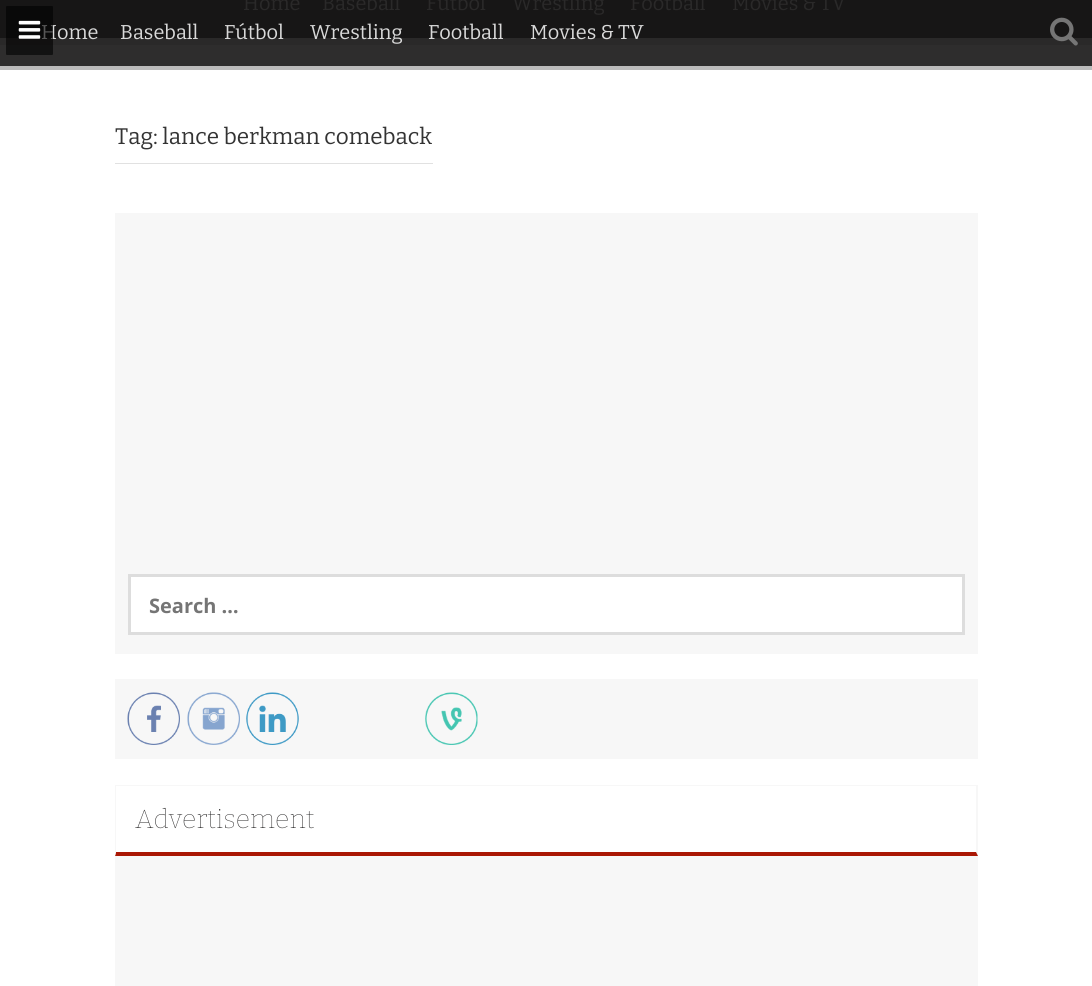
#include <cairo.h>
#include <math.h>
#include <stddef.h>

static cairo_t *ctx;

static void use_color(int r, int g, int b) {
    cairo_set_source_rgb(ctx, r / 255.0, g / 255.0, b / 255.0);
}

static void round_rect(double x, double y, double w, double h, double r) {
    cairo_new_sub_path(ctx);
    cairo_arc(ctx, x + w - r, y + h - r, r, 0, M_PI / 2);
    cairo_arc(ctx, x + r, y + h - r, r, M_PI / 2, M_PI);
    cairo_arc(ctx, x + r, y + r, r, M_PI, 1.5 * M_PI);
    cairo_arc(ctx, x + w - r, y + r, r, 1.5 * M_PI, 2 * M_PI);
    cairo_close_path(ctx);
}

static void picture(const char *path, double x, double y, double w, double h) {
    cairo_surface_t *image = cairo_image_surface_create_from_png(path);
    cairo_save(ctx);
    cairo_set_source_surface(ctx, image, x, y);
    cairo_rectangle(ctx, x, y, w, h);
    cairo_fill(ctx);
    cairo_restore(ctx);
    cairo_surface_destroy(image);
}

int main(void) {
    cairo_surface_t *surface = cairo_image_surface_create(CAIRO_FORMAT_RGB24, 1092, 986);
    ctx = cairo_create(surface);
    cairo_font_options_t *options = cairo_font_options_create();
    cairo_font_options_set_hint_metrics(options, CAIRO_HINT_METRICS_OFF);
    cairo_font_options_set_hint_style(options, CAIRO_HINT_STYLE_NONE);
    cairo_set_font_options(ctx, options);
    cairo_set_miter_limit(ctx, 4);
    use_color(255, 255, 255);
    cairo_paint(ctx);
    use_color(46, 45, 45);
    cairo_rectangle(ctx, 0, 45, 1092, 21);
    cairo_fill(ctx);
    use_color(23, 22, 22);
    cairo_rectangle(ctx, 0, 0, 1092, 38);
    cairo_fill(ctx);
    use_color(42, 41, 41);
    cairo_rectangle(ctx, 0, 38, 1092, 7);
    cairo_fill(ctx);
    cairo_select_font_face(ctx, "Bitter", CAIRO_FONT_SLANT_NORMAL, CAIRO_FONT_WEIGHT_NORMAL);
    cairo_set_font_size(ctx, 20);
    use_color(217, 217, 217);
    cairo_move_to(ctx, 41, 39);
    cairo_show_text(ctx, "Home");
    cairo_set_source_rgba(ctx, 0, 0, 0, 0.6);
    round_rect(6, 6, 47, 49, 1);
    cairo_fill(ctx);
    picture("img1.png", 18, 20, 23, 19);
    use_color(42, 41, 41);
    cairo_move_to(ctx, 243, 10);
    cairo_show_text(ctx, "Home");
    cairo_move_to(ctx, 322, 10);
    cairo_show_text(ctx, "Baseball");
    cairo_move_to(ctx, 426, 10);
    cairo_show_text(ctx, "Fútbol");
    cairo_move_to(ctx, 512, 10);
    cairo_show_text(ctx, "Wrestling");
    cairo_move_to(ctx, 630, 10);
    cairo_show_text(ctx, "Football");
    cairo_move_to(ctx, 732, 10);
    cairo_show_text(ctx, "Movies & TV");
    use_color(187, 187, 187);
    cairo_rectangle(ctx, 0, 66, 1092, 4);
    cairo_fill(ctx);
    use_color(217, 217, 217);
    cairo_move_to(ctx, 120, 39);
    cairo_show_text(ctx, "Baseball");
    cairo_move_to(ctx, 224, 39);
    cairo_show_text(ctx, "Fútbol");
    cairo_move_to(ctx, 310, 39);
    cairo_show_text(ctx, "Wrestling");
    cairo_move_to(ctx, 428, 39);
    cairo_show_text(ctx, "Football");
    cairo_move_to(ctx, 530, 39);
    cairo_show_text(ctx, "Movies & TV");
    picture("img2.png", 1050, 17, 28, 29);
    use_color(225, 225, 225);
    cairo_rectangle(ctx, 115, 163, 318, 1);
    cairo_fill(ctx);
    cairo_set_font_size(ctx, 22.5);
    use_color(51, 51, 51);
    cairo_move_to(ctx, 115, 144);
    cairo_show_text(ctx, "Tag: lance berkman comeback");
    use_color(247, 247, 247);
    cairo_rectangle(ctx, 115, 213, 863, 441);
    cairo_fill(ctx);
    use_color(255, 255, 255);
    cairo_rectangle(ctx, 129.5, 575.5, 834, 58);
    cairo_fill_preserve(ctx);
    use_color(221, 221, 221);
    cairo_set_line_width(ctx, 3);
    cairo_stroke(ctx);
    cairo_select_font_face(ctx, "Open Sans", CAIRO_FONT_SLANT_NORMAL, CAIRO_FONT_WEIGHT_BOLD);
    cairo_set_font_size(ctx, 20);
    use_color(117, 117, 117);
    cairo_move_to(ctx, 149, 613);
    cairo_show_text(ctx, "Search …");
    use_color(247, 247, 247);
    cairo_rectangle(ctx, 115, 679, 863, 80);
    cairo_fill(ctx);
    picture("img3.png", 127, 692, 53, 53);
    picture("img4.png", 187, 692, 53, 53);
    picture("img5.png", 246, 692, 53, 53);
    picture("img6.png", 425, 692, 53, 53);
    cairo_rectangle(ctx, 115, 785, 863, 201);
    cairo_fill(ctx);
    use_color(255, 255, 255);
    cairo_rectangle(ctx, 116, 786, 860, 66);
    cairo_fill(ctx);
    use_color(170, 23, 4);
    cairo_new_path(ctx);
    cairo_move_to(ctx, 978, 856);
    cairo_line_to(ctx, 115, 856);
    cairo_line_to(ctx, 116, 852);
    cairo_line_to(ctx, 976, 852);
    cairo_close_path(ctx);
    cairo_fill(ctx);
    use_color(247, 247, 247);
    cairo_new_path(ctx);
    cairo_move_to(ctx, 115, 856);
    cairo_line_to(ctx, 115, 785);
    cairo_line_to(ctx, 116, 786);
    cairo_line_to(ctx, 116, 852);
    cairo_close_path(ctx);
    cairo_fill(ctx);
    cairo_select_font_face(ctx, "Bitter Thin", CAIRO_FONT_SLANT_NORMAL, CAIRO_FONT_WEIGHT_NORMAL);
    cairo_set_font_size(ctx, 26.25);
    use_color(42, 41, 41);
    cairo_move_to(ctx, 135, 828);
    cairo_show_text(ctx, "Advertisement");
    cairo_surface_write_to_png(surface, "result.png");
    cairo_font_options_destroy(options);
    cairo_destroy(ctx);
    cairo_surface_destroy(surface);
    return 0;
}
